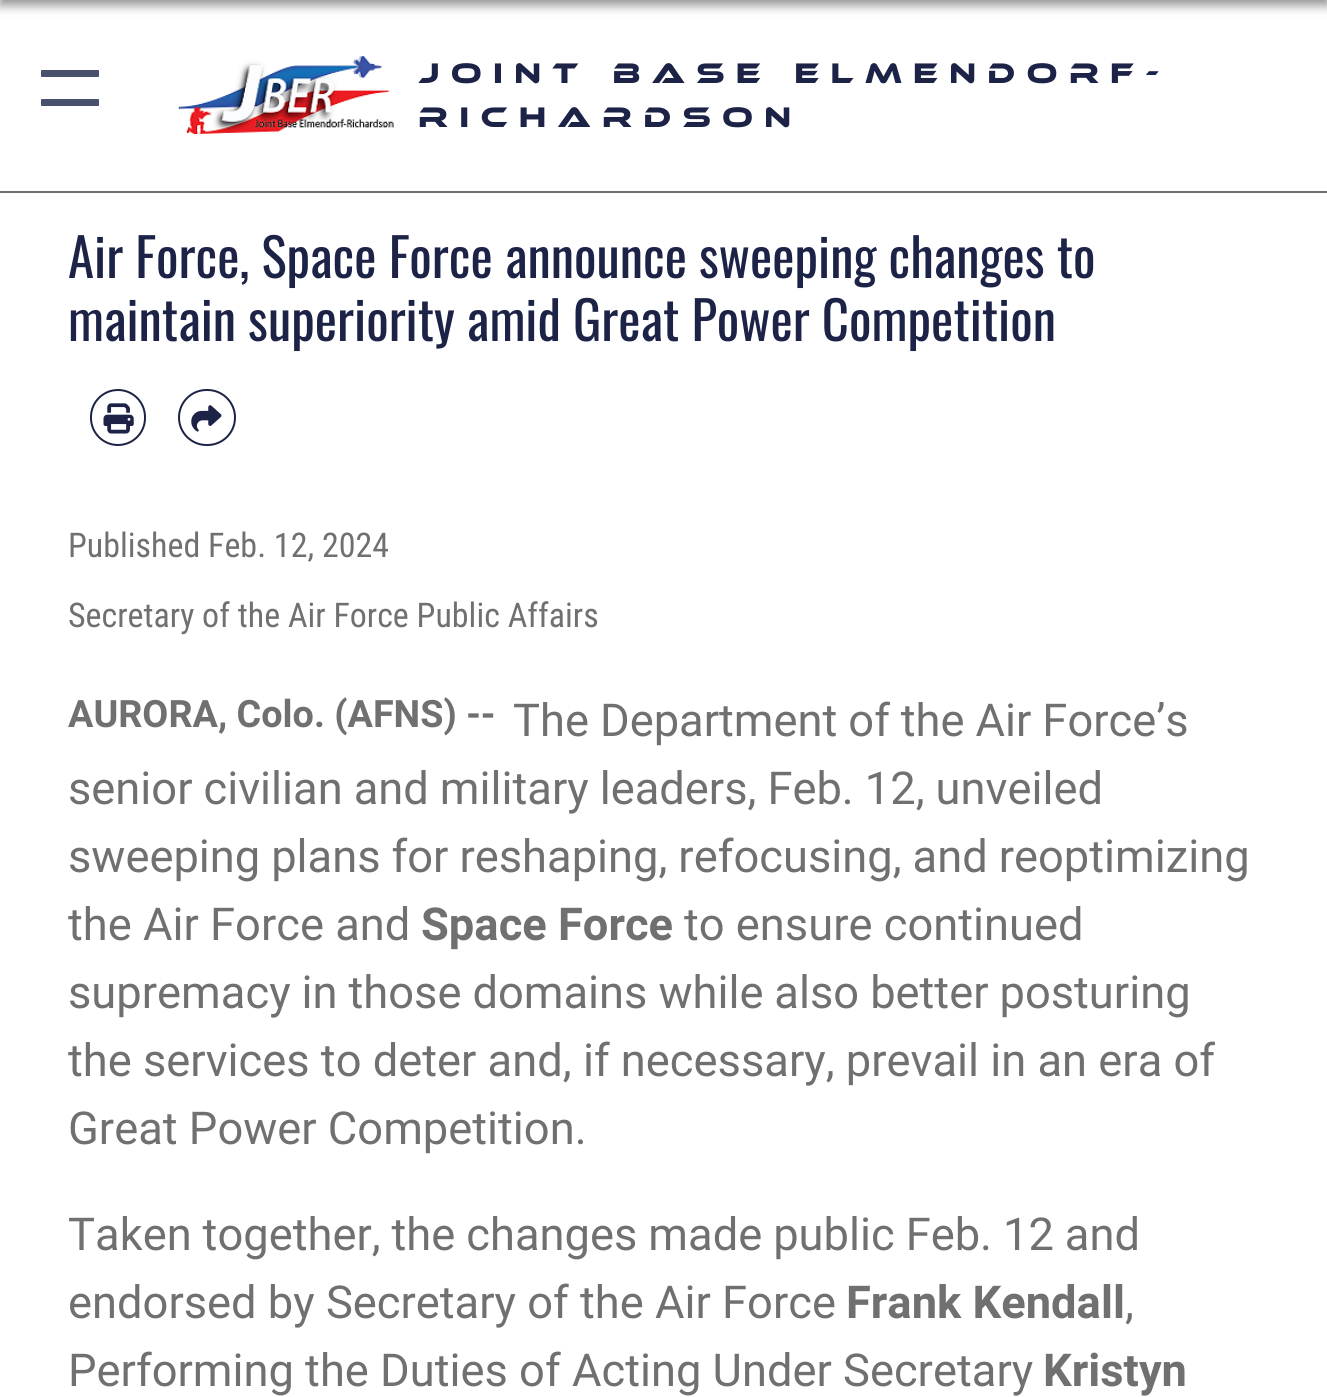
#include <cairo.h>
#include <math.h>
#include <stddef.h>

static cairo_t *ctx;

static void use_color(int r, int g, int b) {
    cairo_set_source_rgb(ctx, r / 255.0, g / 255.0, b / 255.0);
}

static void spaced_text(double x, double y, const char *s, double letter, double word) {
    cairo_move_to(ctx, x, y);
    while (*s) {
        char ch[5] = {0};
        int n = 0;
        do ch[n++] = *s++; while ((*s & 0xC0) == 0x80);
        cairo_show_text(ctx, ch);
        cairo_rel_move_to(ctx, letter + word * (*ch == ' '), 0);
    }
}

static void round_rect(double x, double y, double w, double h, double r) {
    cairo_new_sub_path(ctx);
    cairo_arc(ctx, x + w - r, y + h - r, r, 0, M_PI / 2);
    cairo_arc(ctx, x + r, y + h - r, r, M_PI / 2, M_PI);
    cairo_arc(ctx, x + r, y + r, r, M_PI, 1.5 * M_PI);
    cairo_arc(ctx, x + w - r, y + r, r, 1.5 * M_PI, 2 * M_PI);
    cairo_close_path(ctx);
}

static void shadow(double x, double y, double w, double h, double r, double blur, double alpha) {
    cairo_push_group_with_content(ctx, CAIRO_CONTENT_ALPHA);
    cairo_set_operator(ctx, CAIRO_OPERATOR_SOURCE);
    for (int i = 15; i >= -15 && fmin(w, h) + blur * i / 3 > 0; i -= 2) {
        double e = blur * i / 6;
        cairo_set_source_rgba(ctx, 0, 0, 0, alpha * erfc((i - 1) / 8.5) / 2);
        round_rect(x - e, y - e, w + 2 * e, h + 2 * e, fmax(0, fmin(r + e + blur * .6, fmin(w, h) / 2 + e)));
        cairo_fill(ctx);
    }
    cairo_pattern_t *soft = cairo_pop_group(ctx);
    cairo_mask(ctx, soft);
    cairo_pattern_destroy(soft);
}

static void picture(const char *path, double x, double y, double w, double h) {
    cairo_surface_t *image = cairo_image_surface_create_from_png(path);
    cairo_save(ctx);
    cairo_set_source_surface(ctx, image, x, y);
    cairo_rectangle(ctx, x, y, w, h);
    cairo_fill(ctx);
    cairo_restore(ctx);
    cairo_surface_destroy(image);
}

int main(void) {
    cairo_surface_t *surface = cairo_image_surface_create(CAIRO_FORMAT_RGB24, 1327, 1397);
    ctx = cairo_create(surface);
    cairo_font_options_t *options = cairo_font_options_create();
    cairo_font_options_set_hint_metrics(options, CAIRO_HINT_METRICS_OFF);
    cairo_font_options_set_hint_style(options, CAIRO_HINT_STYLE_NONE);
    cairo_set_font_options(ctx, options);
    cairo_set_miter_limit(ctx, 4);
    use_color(255, 255, 255);
    cairo_paint(ctx);
    use_color(26, 26, 26);
    shadow(0, -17, 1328, 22, 0, 5.5, 0.5);
    use_color(112, 112, 112);
    cairo_rectangle(ctx, 0, 191, 1327, 2);
    cairo_fill(ctx);
    use_color(73, 80, 109);
    round_rect(41, 70, 58, 7, 1);
    cairo_fill(ctx);
    round_rect(41, 99, 58, 7, 1);
    cairo_fill(ctx);
    picture("img1.png", 177, 56, 217, 80);
    cairo_select_font_face(ctx, "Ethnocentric", CAIRO_FONT_SLANT_NORMAL, CAIRO_FONT_WEIGHT_NORMAL);
    cairo_set_font_size(ctx, 29.25);
    use_color(28, 35, 71);
    spaced_text(418, 83, "Joint Base Elmendorf-", 11.3, 0);
    spaced_text(418, 127, "Richardson", 11.3, 0);
    cairo_select_font_face(ctx, "Oswald", CAIRO_FONT_SLANT_NORMAL, CAIRO_FONT_WEIGHT_NORMAL);
    cairo_set_font_size(ctx, 52.9);
    cairo_move_to(ctx, 68, 278);
    cairo_show_text(ctx, "Air Force, Space Force announce sweeping changes to");
    cairo_move_to(ctx, 68, 341);
    cairo_show_text(ctx, "maintain superiority amid Great Power Competition");
    round_rect(91, 390, 54, 55, 27);
    cairo_stroke(ctx);
    picture("img2.png", 103, 403, 31, 31);
    round_rect(179, 390, 56, 55, 27.5);
    cairo_stroke(ctx);
    picture("img3.png", 191, 405, 31, 27);
    cairo_select_font_face(ctx, "Roboto Condensed", CAIRO_FONT_SLANT_NORMAL, CAIRO_FONT_WEIGHT_NORMAL);
    cairo_set_font_size(ctx, 34);
    use_color(112, 112, 112);
    cairo_move_to(ctx, 68, 557);
    cairo_show_text(ctx, "Published Feb. 12, 2024");
    cairo_move_to(ctx, 68, 627);
    cairo_show_text(ctx, "Secretary of the Air Force Public Affairs");
    cairo_select_font_face(ctx, "Roboto", CAIRO_FONT_SLANT_NORMAL, CAIRO_FONT_WEIGHT_BOLD);
    cairo_set_font_size(ctx, 37.75);
    cairo_move_to(ctx, 68, 727);
    cairo_show_text(ctx, "AURORA, Colo. (AFNS) --");
    cairo_select_font_face(ctx, "Roboto", CAIRO_FONT_SLANT_NORMAL, CAIRO_FONT_WEIGHT_NORMAL);
    cairo_set_font_size(ctx, 45.3);
    spaced_text(513, 736, "The Department of the Air Force’s", 0, -0.25);
    spaced_text(68, 804, "senior civilian and military leaders, Feb. 12, unveiled", 0, -0.25);
    spaced_text(68, 872, "sweeping plans for reshaping, refocusing, and reoptimizing", 0, -0.25);
    cairo_move_to(ctx, 68, 940);
    cairo_show_text(ctx, "the Air Force and");
    cairo_select_font_face(ctx, "Roboto", CAIRO_FONT_SLANT_NORMAL, CAIRO_FONT_WEIGHT_BOLD);
    cairo_move_to(ctx, 421, 940);
    cairo_show_text(ctx, "Space Force");
    cairo_select_font_face(ctx, "Roboto", CAIRO_FONT_SLANT_NORMAL, CAIRO_FONT_WEIGHT_NORMAL);
    cairo_move_to(ctx, 684, 940);
    cairo_show_text(ctx, "to ensure continued");
    spaced_text(68, 1008, "supremacy in those domains while also better posturing", 0, -0.25);
    cairo_move_to(ctx, 68, 1076);
    cairo_show_text(ctx, "the services to deter and, if necessary, prevail in an era of");
    cairo_move_to(ctx, 68, 1144);
    cairo_show_text(ctx, "Great Power Competition.");
    spaced_text(68, 1250, "Taken together, the changes made public Feb. 12 and", 0, -0.25);
    cairo_move_to(ctx, 68, 1318);
    cairo_show_text(ctx, "endorsed by Secretary of the Air Force");
    cairo_select_font_face(ctx, "Roboto", CAIRO_FONT_SLANT_NORMAL, CAIRO_FONT_WEIGHT_BOLD);
    cairo_move_to(ctx, 846, 1318);
    cairo_show_text(ctx, "Frank Kendall");
    cairo_select_font_face(ctx, "Roboto", CAIRO_FONT_SLANT_NORMAL, CAIRO_FONT_WEIGHT_NORMAL);
    cairo_move_to(ctx, 1125, 1318);
    cairo_show_text(ctx, ",");
    cairo_move_to(ctx, 68, 1386);
    cairo_show_text(ctx, "Performing the Duties of Acting Under Secretary");
    cairo_select_font_face(ctx, "Roboto", CAIRO_FONT_SLANT_NORMAL, CAIRO_FONT_WEIGHT_BOLD);
    cairo_move_to(ctx, 1043, 1386);
    cairo_show_text(ctx, "Kristyn");
    cairo_surface_write_to_png(surface, "result.png");
    cairo_font_options_destroy(options);
    cairo_destroy(ctx);
    cairo_surface_destroy(surface);
    return 0;
}
